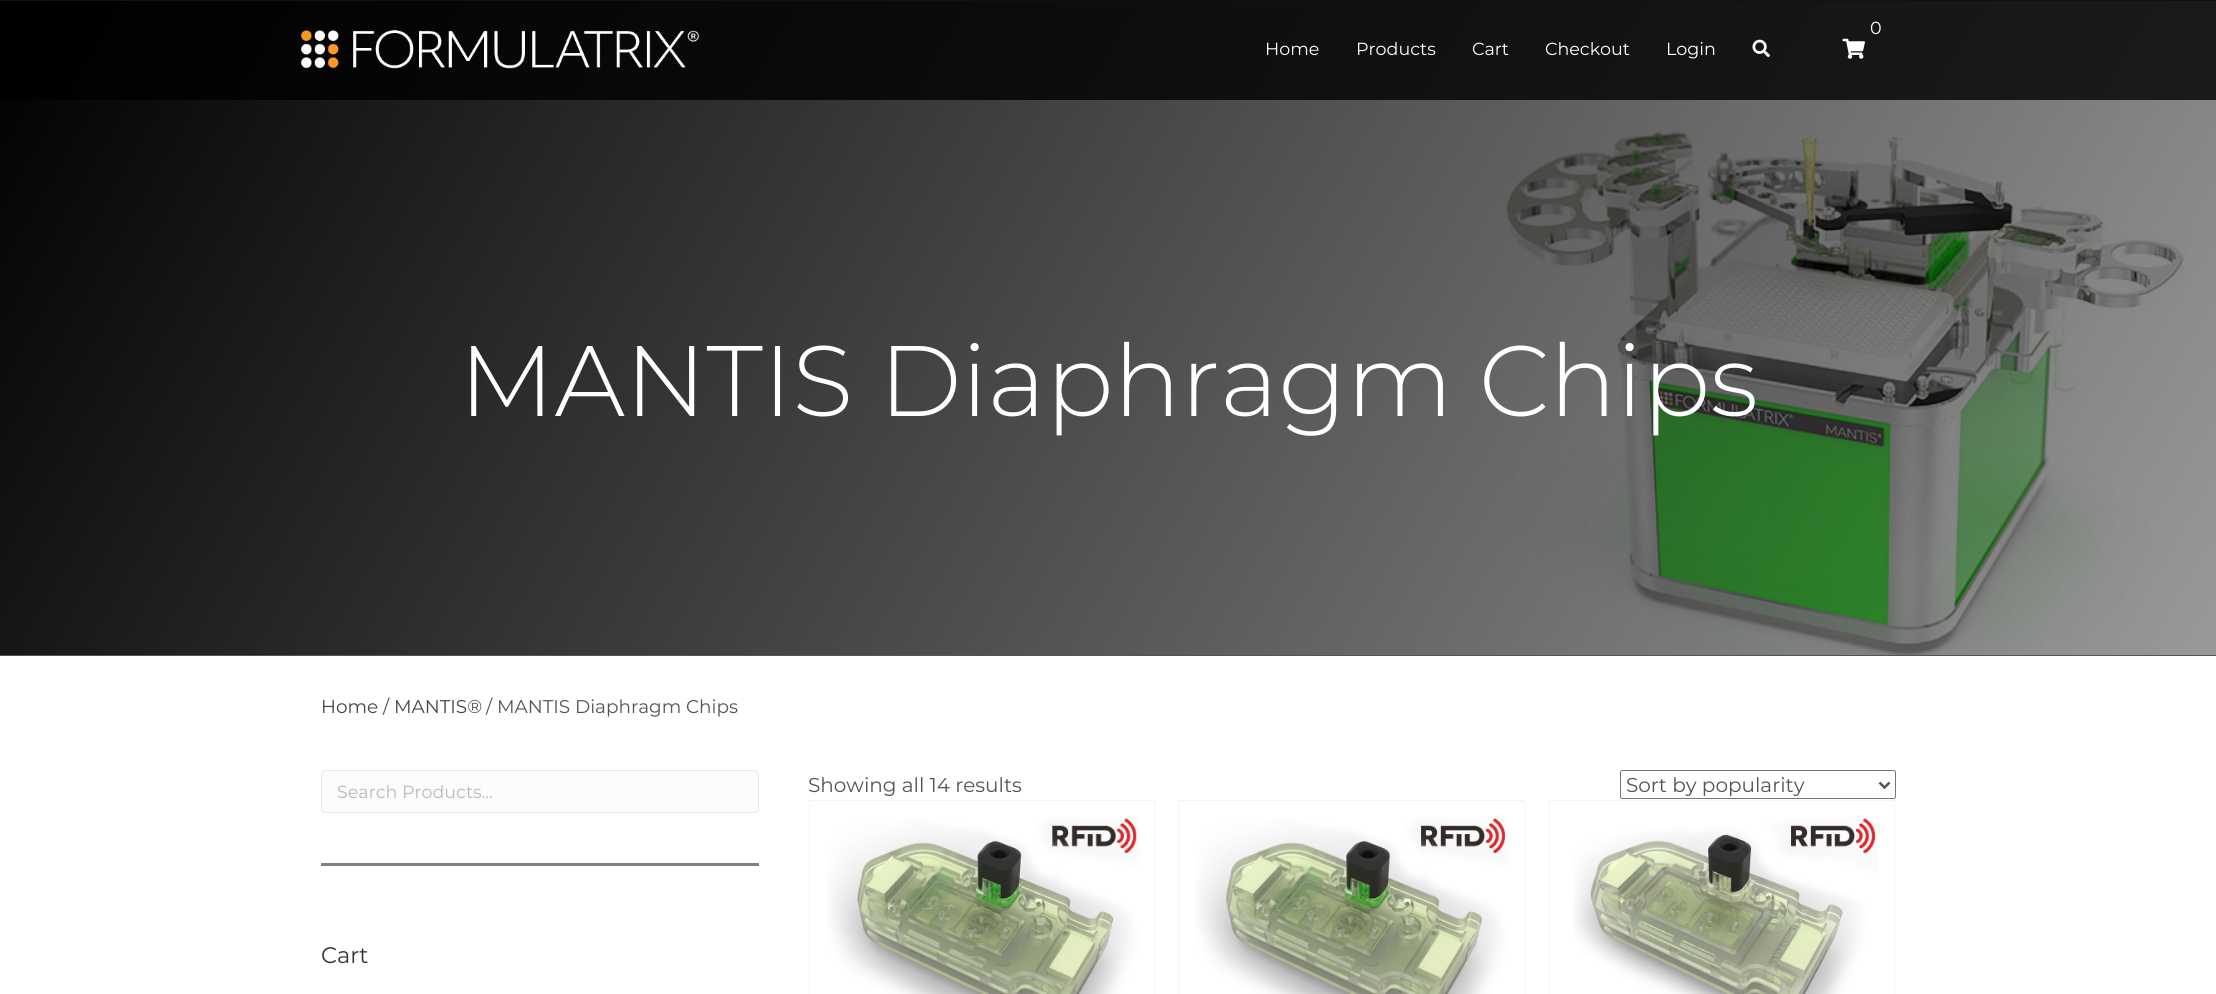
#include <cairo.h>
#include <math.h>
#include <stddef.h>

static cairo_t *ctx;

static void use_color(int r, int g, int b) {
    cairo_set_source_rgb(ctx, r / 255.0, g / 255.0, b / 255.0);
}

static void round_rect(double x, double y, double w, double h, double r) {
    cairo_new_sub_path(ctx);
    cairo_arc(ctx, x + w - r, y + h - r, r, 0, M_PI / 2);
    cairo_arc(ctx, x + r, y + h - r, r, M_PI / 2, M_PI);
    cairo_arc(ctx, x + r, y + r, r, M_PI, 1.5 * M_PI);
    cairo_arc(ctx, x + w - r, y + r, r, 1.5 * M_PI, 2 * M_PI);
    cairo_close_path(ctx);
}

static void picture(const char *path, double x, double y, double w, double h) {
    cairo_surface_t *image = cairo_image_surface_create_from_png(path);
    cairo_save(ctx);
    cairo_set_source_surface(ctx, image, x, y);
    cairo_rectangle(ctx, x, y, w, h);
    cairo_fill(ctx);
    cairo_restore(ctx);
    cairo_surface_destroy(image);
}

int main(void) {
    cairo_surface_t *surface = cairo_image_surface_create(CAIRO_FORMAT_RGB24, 2216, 994);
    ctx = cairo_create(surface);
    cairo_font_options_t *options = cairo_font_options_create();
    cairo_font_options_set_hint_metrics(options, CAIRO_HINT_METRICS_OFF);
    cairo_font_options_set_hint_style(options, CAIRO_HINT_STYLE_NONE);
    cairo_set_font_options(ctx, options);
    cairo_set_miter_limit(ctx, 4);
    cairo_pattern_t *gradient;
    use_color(255, 255, 255);
    cairo_paint(ctx);
    use_color(84, 84, 84);
    cairo_rectangle(ctx, 0, 0, 2216, 1);
    cairo_fill(ctx);
    picture("img4.png", 1506, 130, 680, 525);
    gradient = cairo_pattern_create_linear(135, -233, 2081, 890);
    cairo_pattern_add_color_stop_rgba(gradient, 0, 0, 0, 0, 1);
    cairo_pattern_add_color_stop_rgba(gradient, 1, 0, 0, 0, 0.4);
    cairo_set_source(ctx, gradient);
    cairo_pattern_destroy(gradient);
    cairo_rectangle(ctx, 0, 1, 2216, 654);
    cairo_fill(ctx);
    cairo_set_source_rgba(ctx, 0, 0, 0, 0.8);
    cairo_rectangle(ctx, 0, 0, 2216, 100);
    cairo_fill(ctx);
    cairo_select_font_face(ctx, "Montserrat", CAIRO_FONT_SLANT_NORMAL, CAIRO_FONT_WEIGHT_NORMAL);
    cairo_set_font_size(ctx, 17.5);
    use_color(255, 255, 255);
    cairo_move_to(ctx, 1870, 34);
    cairo_show_text(ctx, "0");
    picture("img1.png", 1842, 38, 23, 21);
    picture("img2.png", 301, 30, 398, 39);
    cairo_move_to(ctx, 1265, 55);
    cairo_show_text(ctx, "Home");
    cairo_move_to(ctx, 1356, 55);
    cairo_show_text(ctx, "Products");
    cairo_move_to(ctx, 1472, 55);
    cairo_show_text(ctx, "Cart");
    cairo_move_to(ctx, 1545, 55);
    cairo_show_text(ctx, "Checkout");
    cairo_move_to(ctx, 1666, 55);
    cairo_show_text(ctx, "Login");
    picture("img3.png", 1752, 39, 18, 19);
    use_color(84, 84, 84);
    cairo_rectangle(ctx, 0, 655, 2216, 1);
    cairo_fill(ctx);
    cairo_select_font_face(ctx, "Montserrat Light", CAIRO_FONT_SLANT_NORMAL, CAIRO_FONT_WEIGHT_NORMAL);
    cairo_set_font_size(ctx, 100);
    use_color(255, 255, 255);
    cairo_move_to(ctx, 459, 416);
    cairo_show_text(ctx, "MANTIS Diaphragm Chips");
    cairo_select_font_face(ctx, "Montserrat", CAIRO_FONT_SLANT_NORMAL, CAIRO_FONT_WEIGHT_NORMAL);
    cairo_set_font_size(ctx, 18.4);
    use_color(68, 68, 68);
    cairo_move_to(ctx, 321, 713);
    cairo_show_text(ctx, "Home");
    use_color(84, 84, 84);
    cairo_move_to(ctx, 383, 713);
    cairo_show_text(ctx, "/");
    use_color(68, 68, 68);
    cairo_move_to(ctx, 394, 713);
    cairo_show_text(ctx, "MANTIS®");
    use_color(84, 84, 84);
    cairo_move_to(ctx, 486, 713);
    cairo_show_text(ctx, "/ MANTIS Diaphragm Chips");
    use_color(252, 252, 252);
    round_rect(321.5, 770.5, 437, 42, 4.5);
    cairo_fill_preserve(ctx);
    use_color(230, 230, 230);
    cairo_set_line_width(ctx, 1);
    cairo_stroke(ctx);
    cairo_set_font_size(ctx, 17.5);
    use_color(185, 185, 185);
    cairo_move_to(ctx, 337, 798);
    cairo_show_text(ctx, "Search Products...");
    use_color(128, 128, 128);
    cairo_rectangle(ctx, 321, 863, 438, 3);
    cairo_fill(ctx);
    cairo_set_font_size(ctx, 22.5);
    use_color(51, 51, 51);
    cairo_move_to(ctx, 321, 963);
    cairo_show_text(ctx, "Cart");
    cairo_set_font_size(ctx, 20);
    use_color(84, 84, 84);
    cairo_move_to(ctx, 808, 792);
    cairo_show_text(ctx, "Showing all 14 results");
    round_rect(1620.5, 770.5, 275, 28, 2);
    use_color(118, 118, 118);
    cairo_stroke(ctx);
    cairo_new_path(ctx);
    cairo_move_to(ctx, 1879.5, 782.5);
    cairo_line_to(ctx, 1884.5, 787.5);
    cairo_line_to(ctx, 1889.5, 782.5);
    use_color(84, 84, 84);
    cairo_set_line_width(ctx, 2.5);
    cairo_stroke(ctx);
    cairo_move_to(ctx, 1626, 792);
    cairo_show_text(ctx, "Sort by popularity");
    cairo_rectangle(ctx, 809.5, 800.5, 346, 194);
    use_color(244, 244, 244);
    cairo_set_line_width(ctx, 1);
    cairo_stroke(ctx);
    picture("img5.png", 828, 817, 312, 177);
    cairo_rectangle(ctx, 1178.5, 800.5, 346, 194);
    cairo_stroke(ctx);
    picture("img6.png", 1196, 817, 313, 177);
    cairo_rectangle(ctx, 1548.5, 800.5, 346, 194);
    cairo_stroke(ctx);
    picture("img7.png", 1573, 817, 305, 177);
    cairo_surface_write_to_png(surface, "result.png");
    cairo_font_options_destroy(options);
    cairo_destroy(ctx);
    cairo_surface_destroy(surface);
    return 0;
}
